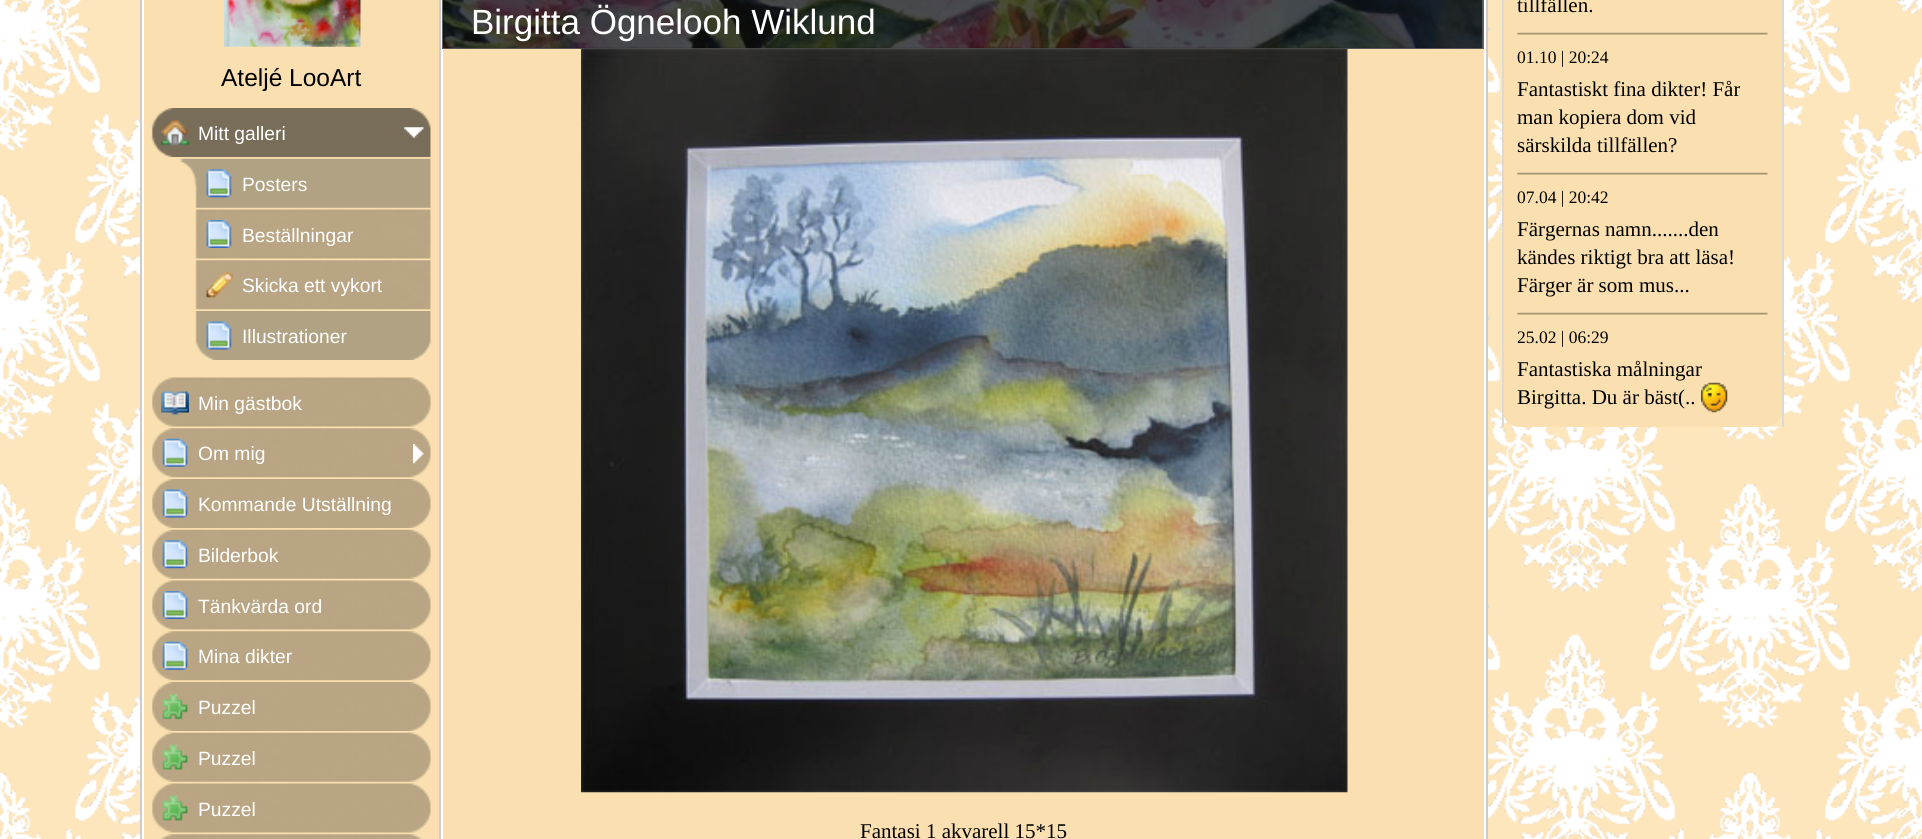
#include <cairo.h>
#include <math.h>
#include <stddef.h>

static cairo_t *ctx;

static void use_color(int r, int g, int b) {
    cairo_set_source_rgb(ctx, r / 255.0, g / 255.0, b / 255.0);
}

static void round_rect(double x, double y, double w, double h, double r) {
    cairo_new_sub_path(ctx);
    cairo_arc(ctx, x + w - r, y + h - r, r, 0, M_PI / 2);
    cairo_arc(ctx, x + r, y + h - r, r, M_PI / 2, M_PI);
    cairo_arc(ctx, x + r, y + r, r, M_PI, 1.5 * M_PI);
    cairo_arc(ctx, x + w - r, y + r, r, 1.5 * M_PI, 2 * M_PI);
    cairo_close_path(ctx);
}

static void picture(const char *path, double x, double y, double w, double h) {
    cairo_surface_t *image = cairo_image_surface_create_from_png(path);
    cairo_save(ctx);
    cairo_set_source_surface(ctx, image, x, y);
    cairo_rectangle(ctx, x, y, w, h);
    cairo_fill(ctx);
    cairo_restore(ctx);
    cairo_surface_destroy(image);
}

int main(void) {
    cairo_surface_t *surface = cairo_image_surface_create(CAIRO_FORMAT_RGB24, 1922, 839);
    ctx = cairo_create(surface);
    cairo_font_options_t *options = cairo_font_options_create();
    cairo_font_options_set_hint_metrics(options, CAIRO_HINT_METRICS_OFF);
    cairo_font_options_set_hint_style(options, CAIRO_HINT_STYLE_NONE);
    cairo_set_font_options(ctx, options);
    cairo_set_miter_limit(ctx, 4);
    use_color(255, 255, 255);
    cairo_paint(ctx);
    picture("img1.png", 0, 0, 1922, 839);
    use_color(255, 255, 255);
    cairo_rectangle(ctx, 142, 0, 1344, 839);
    cairo_fill(ctx);
    use_color(204, 204, 204);
    cairo_rectangle(ctx, 140, 0, 2, 839);
    cairo_fill(ctx);
    use_color(250, 224, 176);
    cairo_rectangle(ctx, 144, 0, 295, 839);
    cairo_fill(ctx);
    picture("img2.png", 224, 0, 137, 47);
    cairo_select_font_face(ctx, "Liberation Sans", CAIRO_FONT_SLANT_NORMAL, CAIRO_FONT_WEIGHT_NORMAL);
    cairo_set_font_size(ctx, 24.5);
    use_color(0, 0, 0);
    cairo_move_to(ctx, 221, 86);
    cairo_show_text(ctx, "Ateljé LooArt");
    picture("img3.png", 151, 108, 280, 49);
    picture("img4.png", 161, 120, 28, 26);
    picture("img5.png", 404, 127, 20, 11);
    cairo_set_font_size(ctx, 19.25);
    use_color(255, 255, 255);
    cairo_move_to(ctx, 198, 140);
    cairo_show_text(ctx, "Mitt galleri");
    picture("img6.png", 180, 158, 251, 50);
    picture("img7.png", 206, 169, 26, 29);
    cairo_move_to(ctx, 242, 191);
    cairo_show_text(ctx, "Posters");
    picture("img8.png", 195, 209, 236, 50);
    picture("img9.png", 206, 220, 26, 28);
    cairo_move_to(ctx, 242, 242);
    cairo_show_text(ctx, "Beställningar");
    picture("img10.png", 195, 260, 236, 50);
    picture("img11.png", 206, 272, 27, 26);
    cairo_move_to(ctx, 242, 292);
    cairo_show_text(ctx, "Skicka ett vykort");
    picture("img12.png", 195, 311, 236, 49);
    picture("img13.png", 206, 321, 26, 29);
    cairo_move_to(ctx, 242, 343);
    cairo_show_text(ctx, "Illustrationer");
    picture("img14.png", 152, 377, 279, 50);
    picture("img15.png", 161, 391, 28, 24);
    cairo_move_to(ctx, 198, 410);
    cairo_show_text(ctx, "Min gästbok");
    picture("img16.png", 152, 428, 279, 50);
    picture("img17.png", 162, 438, 26, 29);
    picture("img18.png", 413, 444, 11, 20);
    cairo_move_to(ctx, 198, 460);
    cairo_show_text(ctx, "Om mig");
    picture("img19.png", 152, 479, 279, 49);
    picture("img20.png", 162, 489, 26, 29);
    cairo_move_to(ctx, 198, 511);
    cairo_show_text(ctx, "Kommande Utställning");
    picture("img21.png", 152, 529, 279, 50);
    picture("img22.png", 162, 540, 26, 29);
    cairo_move_to(ctx, 198, 562);
    cairo_show_text(ctx, "Bilderbok");
    picture("img14.png", 152, 580, 279, 50);
    picture("img23.png", 162, 591, 26, 28);
    cairo_move_to(ctx, 198, 613);
    cairo_show_text(ctx, "Tänkvärda ord");
    picture("img16.png", 152, 631, 279, 50);
    picture("img17.png", 162, 641, 26, 29);
    cairo_move_to(ctx, 198, 663);
    cairo_show_text(ctx, "Mina dikter");
    picture("img19.png", 152, 682, 279, 49);
    picture("img24.png", 162, 694, 26, 26);
    cairo_move_to(ctx, 198, 714);
    cairo_show_text(ctx, "Puzzel");
    picture("img21.png", 152, 732, 279, 50);
    picture("img25.png", 162, 744, 26, 26);
    cairo_move_to(ctx, 198, 765);
    cairo_show_text(ctx, "Puzzel");
    picture("img14.png", 152, 783, 279, 50);
    picture("img26.png", 162, 795, 26, 26);
    cairo_move_to(ctx, 198, 816);
    cairo_show_text(ctx, "Puzzel");
    picture("img27.png", 161, 834, 261, 5);
    use_color(204, 204, 204);
    cairo_rectangle(ctx, 439, 0, 2, 839);
    cairo_fill(ctx);
    use_color(250, 224, 176);
    cairo_rectangle(ctx, 443, 49, 1041, 790);
    cairo_fill(ctx);
    picture("img28.png", 442, 0, 1041, 49);
    cairo_set_source_rgba(ctx, 0, 0, 0, 0.6);
    cairo_rectangle(ctx, 442, 0, 1042, 49);
    cairo_fill(ctx);
    cairo_set_font_size(ctx, 35);
    use_color(255, 255, 255);
    cairo_move_to(ctx, 471, 34);
    cairo_show_text(ctx, "Birgitta Ögnelooh Wiklund");
    picture("img29.png", 581, 48, 767, 745);
    cairo_select_font_face(ctx, "Liberation Serif", CAIRO_FONT_SLANT_NORMAL, CAIRO_FONT_WEIGHT_NORMAL);
    cairo_set_font_size(ctx, 21);
    use_color(0, 0, 0);
    cairo_move_to(ctx, 860, 838);
    cairo_show_text(ctx, "Fantasi 1 akvarell 15*15");
    use_color(204, 204, 204);
    cairo_rectangle(ctx, 1486, 0, 2, 839);
    cairo_fill(ctx);
    use_color(250, 224, 176);
    round_rect(1502, -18, 281, 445, 18);
    cairo_fill(ctx);
    use_color(218, 218, 218);
    cairo_rectangle(ctx, 1782, 0, 2, 427);
    cairo_fill(ctx);
    cairo_rectangle(ctx, 1502, 0, 2, 427);
    cairo_fill(ctx);
    use_color(0, 0, 0);
    cairo_move_to(ctx, 1517, 12);
    cairo_show_text(ctx, "tillfällen.");
    picture("img30.png", 1517, 32, 251, 3);
    cairo_set_font_size(ctx, 17.5);
    cairo_move_to(ctx, 1517, 63);
    cairo_show_text(ctx, "01.10 | 20:24");
    cairo_set_font_size(ctx, 21);
    cairo_move_to(ctx, 1517, 96);
    cairo_show_text(ctx, "Fantastiskt fina dikter! Får");
    cairo_move_to(ctx, 1517, 124);
    cairo_show_text(ctx, "man kopiera dom vid");
    cairo_move_to(ctx, 1517, 152);
    cairo_show_text(ctx, "särskilda tillfällen?");
    picture("img30.png", 1517, 172, 251, 3);
    cairo_set_font_size(ctx, 17.5);
    cairo_move_to(ctx, 1517, 203);
    cairo_show_text(ctx, "07.04 | 20:42");
    cairo_set_font_size(ctx, 21);
    cairo_move_to(ctx, 1517, 236);
    cairo_show_text(ctx, "Färgernas namn.......den");
    cairo_move_to(ctx, 1517, 264);
    cairo_show_text(ctx, "kändes riktigt bra att läsa!");
    cairo_move_to(ctx, 1517, 292);
    cairo_show_text(ctx, "Färger är som mus...");
    picture("img30.png", 1517, 312, 251, 3);
    cairo_set_font_size(ctx, 17.5);
    cairo_move_to(ctx, 1517, 343);
    cairo_show_text(ctx, "25.02 | 06:29");
    cairo_set_font_size(ctx, 21);
    cairo_move_to(ctx, 1517, 376);
    cairo_show_text(ctx, "Fantastiska målningar");
    cairo_move_to(ctx, 1517, 404);
    cairo_show_text(ctx, "Birgitta. Du är bäst(..");
    picture("img31.png", 1701, 382, 27, 31);
    cairo_surface_write_to_png(surface, "result.png");
    cairo_font_options_destroy(options);
    cairo_destroy(ctx);
    cairo_surface_destroy(surface);
    return 0;
}
